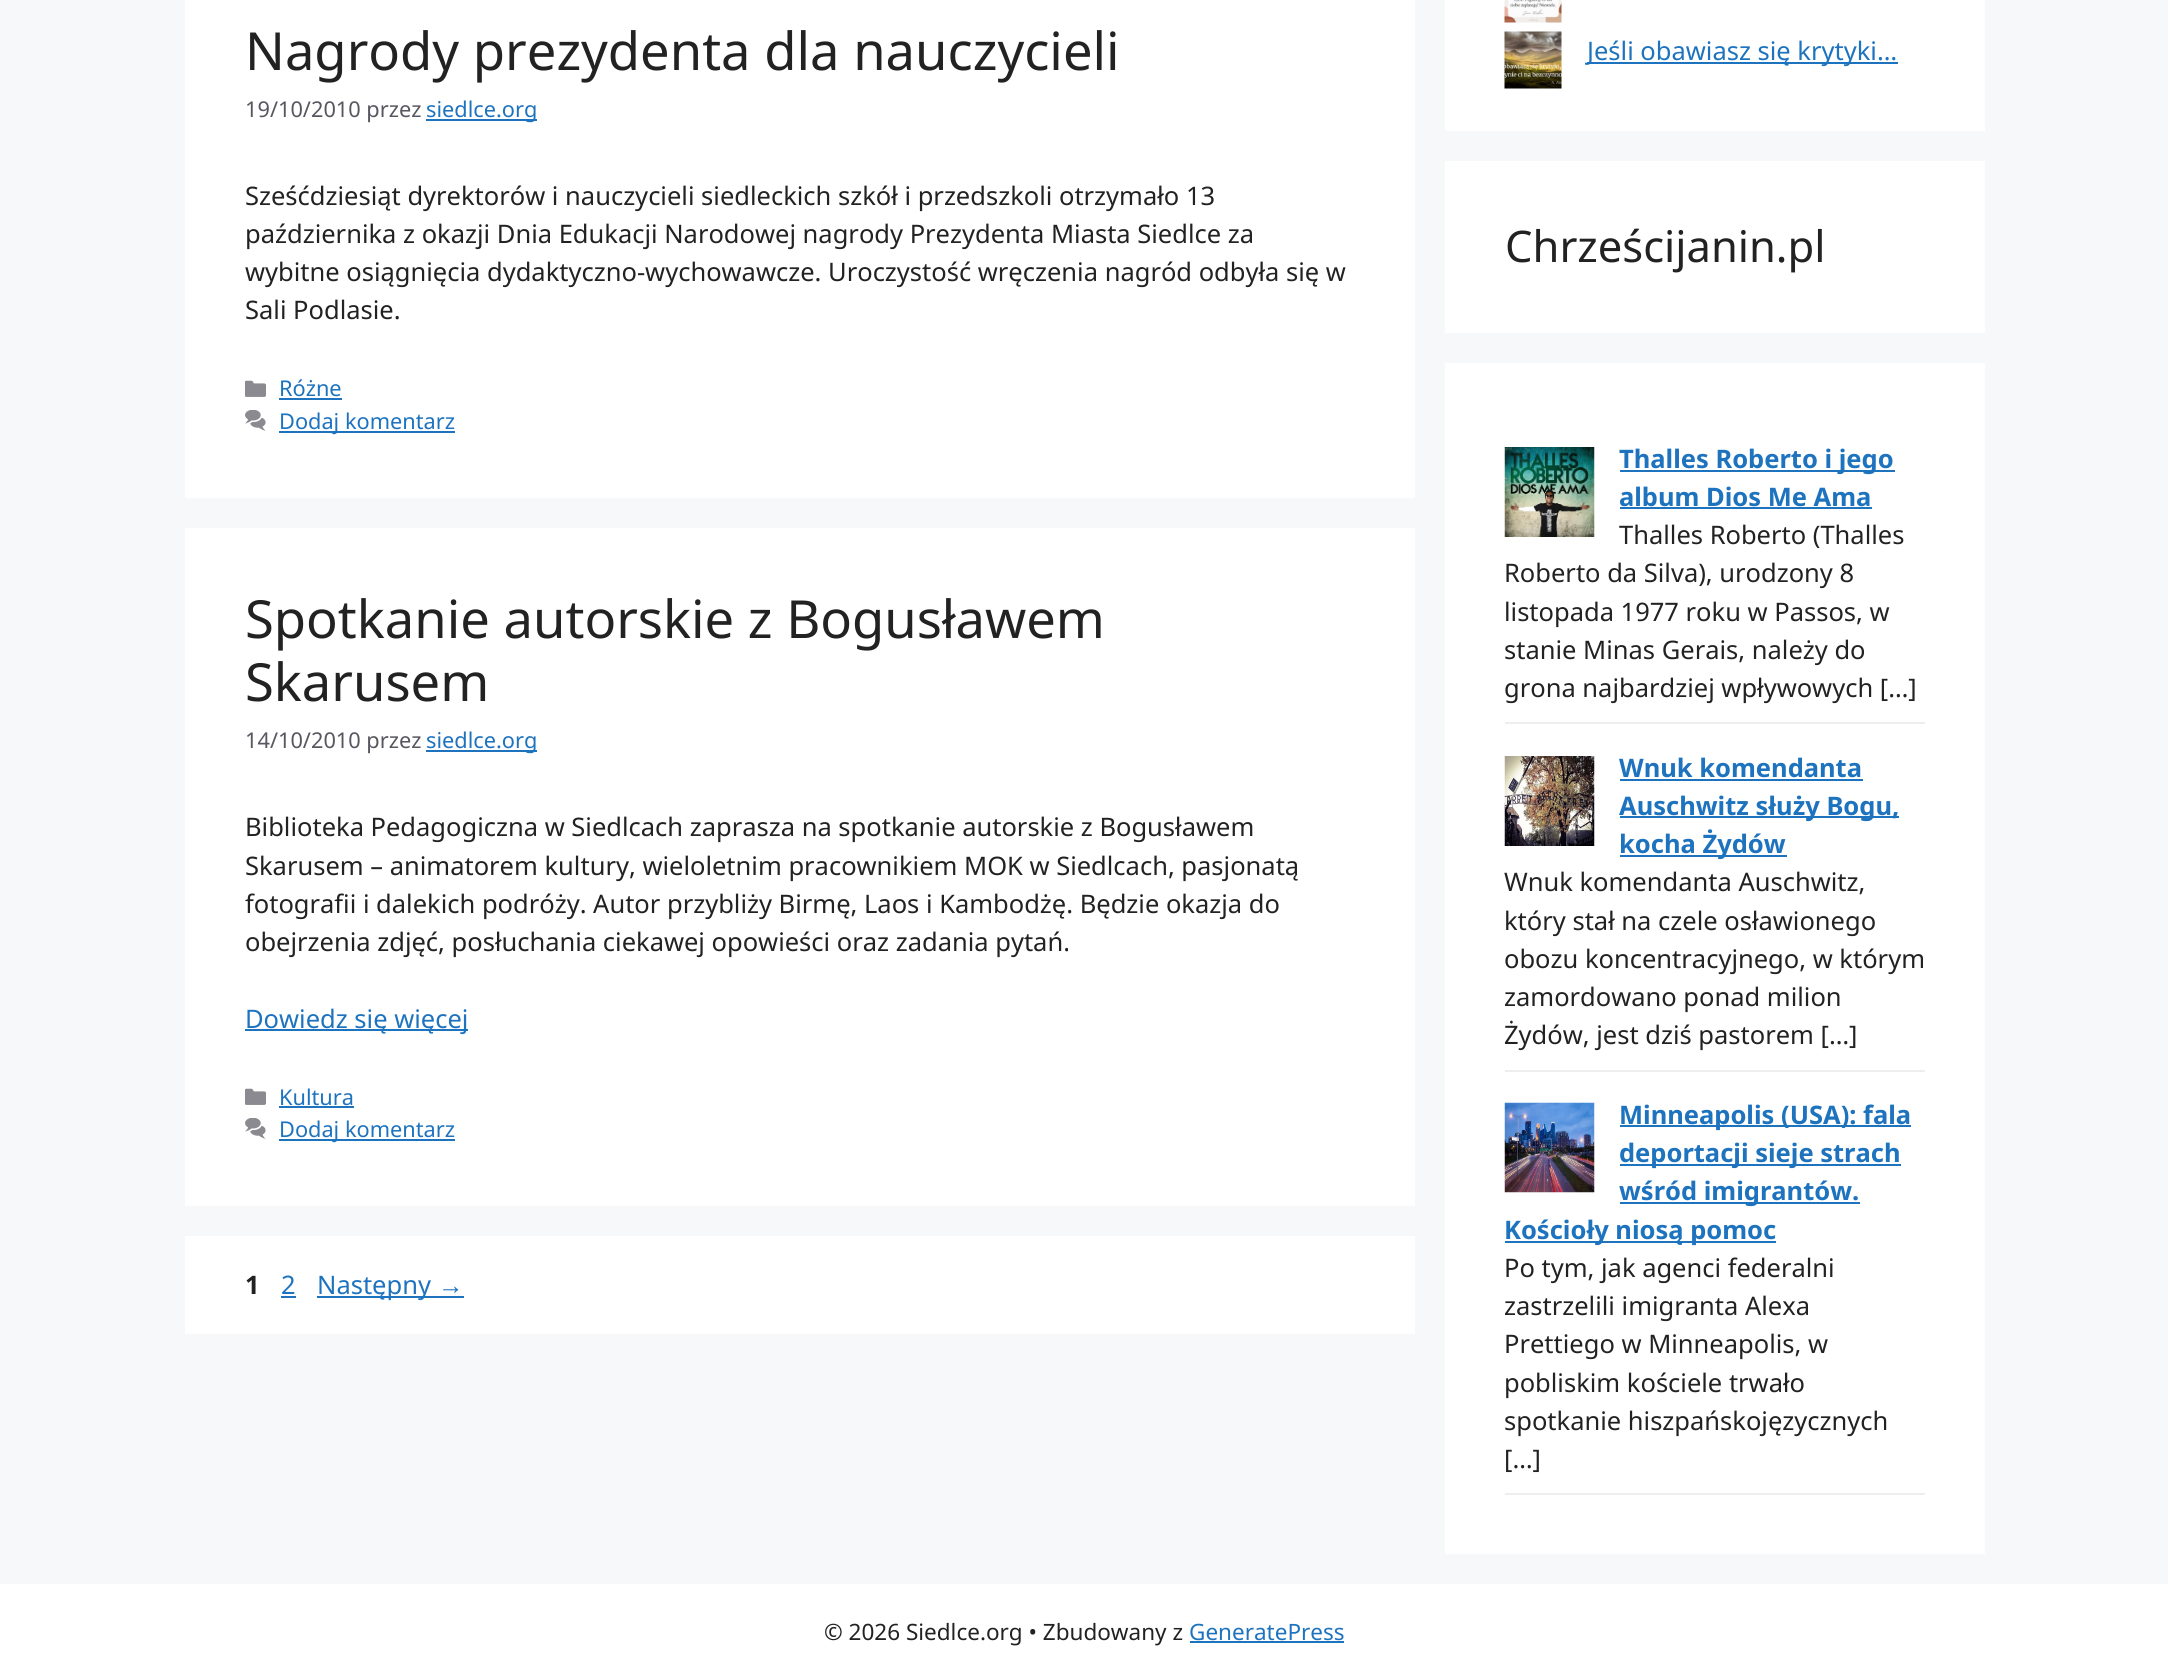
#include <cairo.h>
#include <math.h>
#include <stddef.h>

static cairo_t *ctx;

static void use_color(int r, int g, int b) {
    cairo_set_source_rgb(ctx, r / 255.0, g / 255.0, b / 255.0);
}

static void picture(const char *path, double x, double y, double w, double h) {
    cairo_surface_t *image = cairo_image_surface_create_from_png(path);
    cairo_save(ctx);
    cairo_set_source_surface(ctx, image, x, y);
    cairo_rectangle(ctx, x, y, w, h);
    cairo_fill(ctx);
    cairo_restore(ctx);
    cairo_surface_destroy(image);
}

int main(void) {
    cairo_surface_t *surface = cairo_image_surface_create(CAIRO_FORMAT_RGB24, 2168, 1678);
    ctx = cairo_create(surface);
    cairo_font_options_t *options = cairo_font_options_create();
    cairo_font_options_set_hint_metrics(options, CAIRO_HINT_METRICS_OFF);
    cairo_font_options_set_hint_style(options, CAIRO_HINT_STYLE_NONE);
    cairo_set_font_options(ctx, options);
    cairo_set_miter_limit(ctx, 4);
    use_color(247, 248, 249);
    cairo_paint(ctx);
    use_color(255, 255, 255);
    cairo_rectangle(ctx, 185, 0, 1230, 498);
    cairo_fill(ctx);
    cairo_select_font_face(ctx, "Noto Sans", CAIRO_FONT_SLANT_NORMAL, CAIRO_FONT_WEIGHT_NORMAL);
    cairo_set_font_size(ctx, 52.5);
    use_color(34, 34, 34);
    cairo_move_to(ctx, 245, 70);
    cairo_show_text(ctx, "Nagrody prezydenta dla nauczycieli");
    cairo_set_font_size(ctx, 21.75);
    use_color(87, 87, 96);
    cairo_move_to(ctx, 245, 117);
    cairo_show_text(ctx, "19/10/2010 przez");
    use_color(30, 115, 190);
    cairo_rectangle(ctx, 426, 119, 111, 2);
    cairo_fill(ctx);
    cairo_move_to(ctx, 426, 117);
    cairo_show_text(ctx, "siedlce.org");
    cairo_set_font_size(ctx, 25.5);
    use_color(34, 34, 34);
    cairo_move_to(ctx, 245, 205);
    cairo_show_text(ctx, "Sześćdziesiąt dyrektorów i nauczycieli siedleckich szkół i przedszkoli otrzymało 13");
    cairo_move_to(ctx, 245, 243);
    cairo_show_text(ctx, "października z okazji Dnia Edukacji Narodowej nagrody Prezydenta Miasta Siedlce za");
    cairo_move_to(ctx, 245, 281);
    cairo_show_text(ctx, "wybitne osiągnięcia dydaktyczno-wychowawcze. Uroczystość wręczenia nagród odbyła się w");
    cairo_move_to(ctx, 245, 319);
    cairo_show_text(ctx, "Sali Podlasie.");
    picture("img1.png", 245, 380, 21, 17);
    cairo_set_font_size(ctx, 21.75);
    use_color(30, 115, 190);
    cairo_move_to(ctx, 279, 396);
    cairo_show_text(ctx, "Różne");
    cairo_rectangle(ctx, 279, 398, 63, 2);
    cairo_fill(ctx);
    picture("img2.png", 245, 410, 21, 21);
    cairo_rectangle(ctx, 279, 431, 176, 2);
    cairo_fill(ctx);
    cairo_move_to(ctx, 279, 429);
    cairo_show_text(ctx, "Dodaj komentarz");
    use_color(255, 255, 255);
    cairo_rectangle(ctx, 185, 528, 1230, 678);
    cairo_fill(ctx);
    cairo_set_font_size(ctx, 52.5);
    use_color(34, 34, 34);
    cairo_move_to(ctx, 245, 638);
    cairo_show_text(ctx, "Spotkanie autorskie z Bogusławem");
    cairo_move_to(ctx, 245, 701);
    cairo_show_text(ctx, "Skarusem");
    cairo_set_font_size(ctx, 21.75);
    use_color(87, 87, 96);
    cairo_move_to(ctx, 245, 748);
    cairo_show_text(ctx, "14/10/2010 przez");
    use_color(30, 115, 190);
    cairo_rectangle(ctx, 426, 750, 111, 2);
    cairo_fill(ctx);
    cairo_move_to(ctx, 426, 748);
    cairo_show_text(ctx, "siedlce.org");
    cairo_set_font_size(ctx, 25.5);
    use_color(34, 34, 34);
    cairo_move_to(ctx, 245, 836);
    cairo_show_text(ctx, "Biblioteka Pedagogiczna w Siedlcach zaprasza na spotkanie autorskie z Bogusławem");
    cairo_move_to(ctx, 245, 875);
    cairo_show_text(ctx, "Skarusem – animatorem kultury, wieloletnim pracownikiem MOK w Siedlcach, pasjonatą");
    cairo_move_to(ctx, 245, 913);
    cairo_show_text(ctx, "fotografii i dalekich podróży. Autor przybliży Birmę, Laos i Kambodżę. Będzie okazja do");
    cairo_move_to(ctx, 245, 951);
    cairo_show_text(ctx, "obejrzenia zdjęć, posłuchania ciekawej opowieści oraz zadania pytań.");
    use_color(30, 115, 190);
    cairo_rectangle(ctx, 245, 1029, 223, 2);
    cairo_fill(ctx);
    cairo_move_to(ctx, 245, 1028);
    cairo_show_text(ctx, "Dowiedz się więcej");
    picture("img1.png", 245, 1088, 21, 17);
    cairo_set_font_size(ctx, 21.75);
    cairo_move_to(ctx, 279, 1105);
    cairo_show_text(ctx, "Kultura");
    cairo_rectangle(ctx, 279, 1106, 75, 2);
    cairo_fill(ctx);
    picture("img2.png", 245, 1118, 21, 21);
    cairo_rectangle(ctx, 279, 1139, 176, 2);
    cairo_fill(ctx);
    cairo_move_to(ctx, 279, 1137);
    cairo_show_text(ctx, "Dodaj komentarz");
    use_color(255, 255, 255);
    cairo_rectangle(ctx, 185, 1236, 1230, 98);
    cairo_fill(ctx);
    cairo_select_font_face(ctx, "Noto Sans", CAIRO_FONT_SLANT_NORMAL, CAIRO_FONT_WEIGHT_BOLD);
    cairo_set_font_size(ctx, 25.5);
    use_color(34, 34, 34);
    cairo_move_to(ctx, 245, 1294);
    cairo_show_text(ctx, "1");
    cairo_select_font_face(ctx, "Noto Sans", CAIRO_FONT_SLANT_NORMAL, CAIRO_FONT_WEIGHT_NORMAL);
    use_color(30, 115, 190);
    cairo_move_to(ctx, 281, 1294);
    cairo_show_text(ctx, "2");
    cairo_rectangle(ctx, 281, 1296, 15, 2);
    cairo_fill(ctx);
    cairo_rectangle(ctx, 317, 1296, 147, 2);
    cairo_fill(ctx);
    cairo_move_to(ctx, 317, 1294);
    cairo_show_text(ctx, "Następny");
    cairo_select_font_face(ctx, "Liberation Sans", CAIRO_FONT_SLANT_NORMAL, CAIRO_FONT_WEIGHT_NORMAL);
    cairo_move_to(ctx, 438, 1294);
    cairo_show_text(ctx, "→");
    use_color(255, 255, 255);
    cairo_rectangle(ctx, 1445, 0, 540, 131);
    cairo_fill(ctx);
    picture("img3.png", 1504, 0, 58, 23);
    picture("img4.png", 1504, 31, 58, 58);
    use_color(30, 115, 190);
    cairo_rectangle(ctx, 1587, 62, 311, 2);
    cairo_fill(ctx);
    cairo_select_font_face(ctx, "Noto Sans", CAIRO_FONT_SLANT_NORMAL, CAIRO_FONT_WEIGHT_NORMAL);
    cairo_move_to(ctx, 1587, 60);
    cairo_show_text(ctx, "Jeśli obawiasz się krytyki…");
    use_color(255, 255, 255);
    cairo_rectangle(ctx, 1445, 161, 540, 172);
    cairo_fill(ctx);
    cairo_set_font_size(ctx, 43.5);
    use_color(34, 34, 34);
    cairo_move_to(ctx, 1505, 262);
    cairo_show_text(ctx, "Chrześcijanin.pl");
    use_color(255, 255, 255);
    cairo_rectangle(ctx, 1445, 363, 540, 1191);
    cairo_fill(ctx);
    use_color(238, 238, 238);
    cairo_rectangle(ctx, 1505, 722, 420, 2);
    cairo_fill(ctx);
    picture("img5.png", 1504, 447, 91, 90);
    use_color(30, 115, 190);
    cairo_rectangle(ctx, 1620, 470, 275, 2);
    cairo_fill(ctx);
    cairo_select_font_face(ctx, "Noto Sans", CAIRO_FONT_SLANT_NORMAL, CAIRO_FONT_WEIGHT_BOLD);
    cairo_set_font_size(ctx, 25.5);
    cairo_move_to(ctx, 1619, 468);
    cairo_show_text(ctx, "Thalles Roberto i jego");
    cairo_move_to(ctx, 1619, 506);
    cairo_show_text(ctx, "album Dios Me Ama");
    cairo_rectangle(ctx, 1620, 507, 252, 2);
    cairo_fill(ctx);
    cairo_select_font_face(ctx, "Noto Sans", CAIRO_FONT_SLANT_NORMAL, CAIRO_FONT_WEIGHT_NORMAL);
    use_color(34, 34, 34);
    cairo_move_to(ctx, 1619, 544);
    cairo_show_text(ctx, "Thalles Roberto (Thalles");
    cairo_move_to(ctx, 1504, 582);
    cairo_show_text(ctx, "Roberto da Silva), urodzony 8");
    cairo_move_to(ctx, 1504, 621);
    cairo_show_text(ctx, "listopada 1977 roku w Passos, w");
    cairo_move_to(ctx, 1504, 659);
    cairo_show_text(ctx, "stanie Minas Gerais, należy do");
    cairo_move_to(ctx, 1504, 697);
    cairo_show_text(ctx, "grona najbardziej wpływowych […]");
    use_color(238, 238, 238);
    cairo_rectangle(ctx, 1505, 1070, 420, 2);
    cairo_fill(ctx);
    picture("img6.png", 1504, 756, 91, 90);
    cairo_select_font_face(ctx, "Noto Sans", CAIRO_FONT_SLANT_NORMAL, CAIRO_FONT_WEIGHT_BOLD);
    use_color(30, 115, 190);
    cairo_move_to(ctx, 1619, 777);
    cairo_show_text(ctx, "Wnuk komendanta");
    cairo_rectangle(ctx, 1620, 779, 243, 2);
    cairo_fill(ctx);
    cairo_rectangle(ctx, 1620, 816, 279, 2);
    cairo_fill(ctx);
    cairo_move_to(ctx, 1619, 815);
    cairo_show_text(ctx, "Auschwitz służy Bogu,");
    cairo_rectangle(ctx, 1620, 855, 167, 2);
    cairo_fill(ctx);
    cairo_move_to(ctx, 1619, 853);
    cairo_show_text(ctx, "kocha Żydów");
    cairo_select_font_face(ctx, "Noto Sans", CAIRO_FONT_SLANT_NORMAL, CAIRO_FONT_WEIGHT_NORMAL);
    use_color(34, 34, 34);
    cairo_move_to(ctx, 1504, 891);
    cairo_show_text(ctx, "Wnuk komendanta Auschwitz,");
    cairo_move_to(ctx, 1504, 930);
    cairo_show_text(ctx, "który stał na czele osławionego");
    cairo_move_to(ctx, 1504, 968);
    cairo_show_text(ctx, "obozu koncentracyjnego, w którym");
    cairo_move_to(ctx, 1504, 1006);
    cairo_show_text(ctx, "zamordowano ponad milion");
    cairo_move_to(ctx, 1504, 1044);
    cairo_show_text(ctx, "Żydów, jest dziś pastorem […]");
    use_color(238, 238, 238);
    cairo_rectangle(ctx, 1505, 1493, 420, 2);
    cairo_fill(ctx);
    picture("img7.png", 1504, 1102, 91, 91);
    use_color(30, 115, 190);
    cairo_rectangle(ctx, 1620, 1125, 291, 2);
    cairo_fill(ctx);
    cairo_select_font_face(ctx, "Noto Sans", CAIRO_FONT_SLANT_NORMAL, CAIRO_FONT_WEIGHT_BOLD);
    cairo_move_to(ctx, 1619, 1124);
    cairo_show_text(ctx, "Minneapolis (USA): fala");
    cairo_rectangle(ctx, 1620, 1164, 281, 2);
    cairo_fill(ctx);
    cairo_move_to(ctx, 1619, 1162);
    cairo_show_text(ctx, "deportacji sieje strach");
    cairo_rectangle(ctx, 1620, 1202, 240, 2);
    cairo_fill(ctx);
    cairo_move_to(ctx, 1619, 1200);
    cairo_show_text(ctx, "wśród imigrantów.");
    cairo_rectangle(ctx, 1505, 1241, 271, 2);
    cairo_fill(ctx);
    cairo_move_to(ctx, 1504, 1239);
    cairo_show_text(ctx, "Kościoły niosą pomoc");
    cairo_select_font_face(ctx, "Noto Sans", CAIRO_FONT_SLANT_NORMAL, CAIRO_FONT_WEIGHT_NORMAL);
    use_color(34, 34, 34);
    cairo_move_to(ctx, 1504, 1277);
    cairo_show_text(ctx, "Po tym, jak agenci federalni");
    cairo_move_to(ctx, 1504, 1315);
    cairo_show_text(ctx, "zastrzelili imigranta Alexa");
    cairo_move_to(ctx, 1504, 1353);
    cairo_show_text(ctx, "Prettiego w Minneapolis, w");
    cairo_move_to(ctx, 1504, 1392);
    cairo_show_text(ctx, "pobliskim kościele trwało");
    cairo_move_to(ctx, 1504, 1430);
    cairo_show_text(ctx, "spotkanie hiszpańskojęzycznych");
    cairo_move_to(ctx, 1504, 1468);
    cairo_show_text(ctx, "[…]");
    use_color(255, 255, 255);
    cairo_rectangle(ctx, 0, 1584, 2168, 94);
    cairo_fill(ctx);
    cairo_set_font_size(ctx, 22.5);
    use_color(34, 34, 34);
    cairo_move_to(ctx, 824, 1640);
    cairo_show_text(ctx, "© 2026 Siedlce.org • Zbudowany z");
    use_color(30, 115, 190);
    cairo_move_to(ctx, 1189, 1640);
    cairo_show_text(ctx, "GeneratePress");
    cairo_rectangle(ctx, 1190, 1641, 154, 2);
    cairo_fill(ctx);
    cairo_surface_write_to_png(surface, "result.png");
    cairo_font_options_destroy(options);
    cairo_destroy(ctx);
    cairo_surface_destroy(surface);
    return 0;
}
